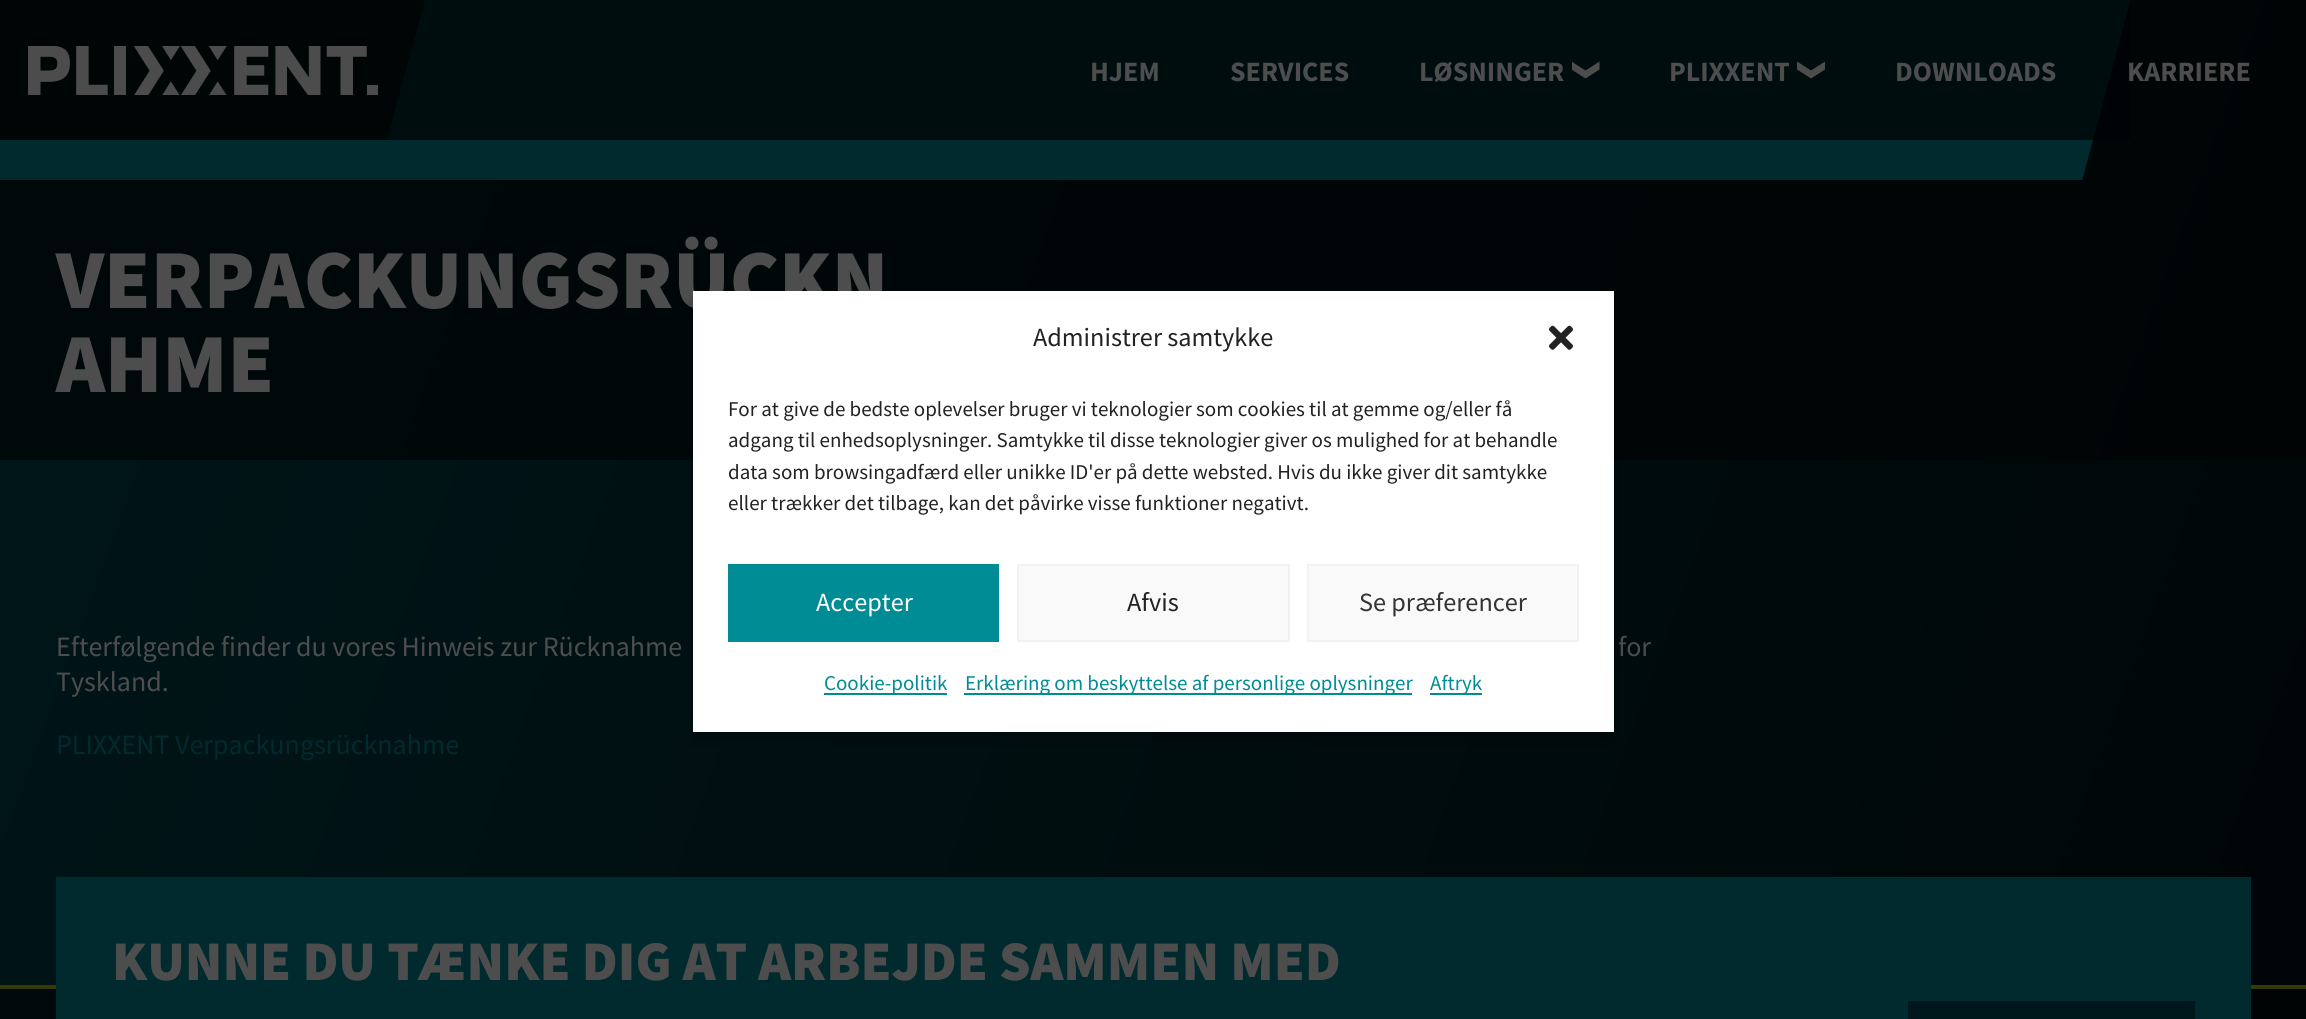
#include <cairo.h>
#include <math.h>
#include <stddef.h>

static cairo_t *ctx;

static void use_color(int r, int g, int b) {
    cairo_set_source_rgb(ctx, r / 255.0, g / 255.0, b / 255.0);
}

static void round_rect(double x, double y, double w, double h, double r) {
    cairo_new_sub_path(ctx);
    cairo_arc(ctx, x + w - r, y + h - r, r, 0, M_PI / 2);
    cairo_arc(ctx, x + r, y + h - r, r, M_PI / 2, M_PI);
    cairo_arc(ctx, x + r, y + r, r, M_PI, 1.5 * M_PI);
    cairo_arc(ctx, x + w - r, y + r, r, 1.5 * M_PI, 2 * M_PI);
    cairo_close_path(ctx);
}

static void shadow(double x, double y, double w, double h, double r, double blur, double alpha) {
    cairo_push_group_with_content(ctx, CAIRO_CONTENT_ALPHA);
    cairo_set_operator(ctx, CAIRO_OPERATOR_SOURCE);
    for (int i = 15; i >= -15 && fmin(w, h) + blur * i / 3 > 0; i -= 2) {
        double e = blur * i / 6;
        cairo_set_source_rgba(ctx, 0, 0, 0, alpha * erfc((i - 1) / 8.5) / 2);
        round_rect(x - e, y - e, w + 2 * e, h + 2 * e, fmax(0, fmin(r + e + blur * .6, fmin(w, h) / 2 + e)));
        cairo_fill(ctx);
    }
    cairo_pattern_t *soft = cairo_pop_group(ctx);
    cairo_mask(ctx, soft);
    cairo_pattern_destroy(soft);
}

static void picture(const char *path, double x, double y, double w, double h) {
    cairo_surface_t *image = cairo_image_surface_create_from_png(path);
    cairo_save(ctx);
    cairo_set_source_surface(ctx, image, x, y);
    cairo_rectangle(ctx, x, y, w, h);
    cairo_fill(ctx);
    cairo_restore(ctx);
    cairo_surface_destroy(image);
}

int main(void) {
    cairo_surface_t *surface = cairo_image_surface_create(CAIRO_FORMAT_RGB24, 2306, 1019);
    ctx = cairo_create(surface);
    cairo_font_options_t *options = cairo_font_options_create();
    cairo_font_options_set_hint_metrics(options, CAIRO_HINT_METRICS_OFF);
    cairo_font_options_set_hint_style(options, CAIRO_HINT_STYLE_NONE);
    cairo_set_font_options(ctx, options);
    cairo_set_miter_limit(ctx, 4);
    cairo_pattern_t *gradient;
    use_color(255, 255, 255);
    cairo_paint(ctx);
    gradient = cairo_pattern_create_linear(-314, 197, 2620, 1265);
    cairo_pattern_add_color_stop_rgba(gradient, 0, 0, 0.094, 0.106, 1);
    cairo_pattern_add_color_stop_rgba(gradient, 1, 0, 0.012, 0.016, 1);
    cairo_set_source(ctx, gradient);
    cairo_pattern_destroy(gradient);
    cairo_rectangle(ctx, 0, 460, 2306, 525);
    cairo_fill(ctx);
    gradient = cairo_pattern_create_linear(-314, 197, 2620, 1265);
    cairo_pattern_add_color_stop_rgba(gradient, 0, 0, 0.035, 0.039, 1);
    cairo_pattern_add_color_stop_rgba(gradient, 1, 0, 0.012, 0.016, 1);
    cairo_set_source(ctx, gradient);
    cairo_pattern_destroy(gradient);
    cairo_rectangle(ctx, 0, 989, 2306, 30);
    cairo_fill(ctx);
    cairo_rectangle(ctx, 0, 180, 2306, 280);
    cairo_fill(ctx);
    cairo_rectangle(ctx, 2082, 0, 224, 180);
    cairo_fill(ctx);
    picture("img2.png", 0, 0, 2131, 180);
    cairo_set_source_rgba(ctx, 0, 0.012, 0.016, 0.74);
    cairo_rectangle(ctx, 387, 0, 1744, 140);
    cairo_fill(ctx);
    use_color(0, 6, 6);
    cairo_new_path(ctx);
    cairo_move_to(ctx, -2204, 0);
    cairo_line_to(ctx, 425, 0);
    cairo_line_to(ctx, 387, 140);
    cairo_line_to(ctx, -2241, 140);
    cairo_close_path(ctx);
    cairo_fill(ctx);
    picture("img1.png", 28, 46, 350, 49);
    cairo_select_font_face(ctx, "Source Sans Pro", CAIRO_FONT_SLANT_NORMAL, CAIRO_FONT_WEIGHT_BOLD);
    cairo_set_font_size(ctx, 28);
    use_color(77, 77, 77);
    cairo_move_to(ctx, 1090, 81);
    cairo_show_text(ctx, "HJEM");
    cairo_move_to(ctx, 1230, 81);
    cairo_show_text(ctx, "SERVICES");
    cairo_move_to(ctx, 1419, 81);
    cairo_show_text(ctx, "LØSNINGER");
    cairo_save(ctx);
    cairo_rectangle(ctx, 1572, 56, 28, 28);
    cairo_clip(ctx);
    cairo_new_path(ctx);
    cairo_move_to(ctx, 1599.5, 61.5);
    cairo_line_to(ctx, 1585.5, 70.5);
    cairo_line_to(ctx, 1571.5, 61.5);
    cairo_line_to(ctx, 1571.5, 69.5);
    cairo_line_to(ctx, 1585.5, 78.5);
    cairo_line_to(ctx, 1599.5, 69.5);
    cairo_close_path(ctx);
    cairo_fill(ctx);
    cairo_restore(ctx);
    cairo_move_to(ctx, 1669, 81);
    cairo_show_text(ctx, "PLIXXENT");
    cairo_new_path(ctx);
    cairo_move_to(ctx, 1825, 61.5);
    cairo_line_to(ctx, 1811, 70.5);
    cairo_line_to(ctx, 1797, 61.5);
    cairo_line_to(ctx, 1797, 69.5);
    cairo_line_to(ctx, 1811, 78.5);
    cairo_line_to(ctx, 1825, 69.5);
    cairo_close_path(ctx);
    cairo_fill(ctx);
    cairo_move_to(ctx, 1895, 81);
    cairo_show_text(ctx, "DOWNLOADS");
    cairo_move_to(ctx, 2127, 81);
    cairo_show_text(ctx, "KARRIERE");
    cairo_select_font_face(ctx, "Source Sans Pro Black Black", CAIRO_FONT_SLANT_NORMAL, CAIRO_FONT_WEIGHT_NORMAL);
    cairo_set_font_size(ctx, 84);
    cairo_move_to(ctx, 56, 308);
    cairo_show_text(ctx, "VERPACKUNGSRÜCKN");
    cairo_move_to(ctx, 56, 392);
    cairo_show_text(ctx, "AHME");
    cairo_select_font_face(ctx, "Source Sans Pro", CAIRO_FONT_SLANT_NORMAL, CAIRO_FONT_WEIGHT_NORMAL);
    cairo_set_font_size(ctx, 28);
    cairo_move_to(ctx, 56, 656);
    cairo_show_text(ctx, "Efterfølgende finder du vores Hinweis zur Rücknahme");
    cairo_move_to(ctx, 1618, 656);
    cairo_show_text(ctx, "for");
    cairo_move_to(ctx, 56, 691);
    cairo_show_text(ctx, "Tyskland.");
    use_color(0, 42, 45);
    cairo_move_to(ctx, 56, 754);
    cairo_show_text(ctx, "PLIXXENT Verpackungsrücknahme");
    use_color(0, 0, 0);
    shadow(693, 301, 921, 441, 0, 5, 0.23);
    use_color(255, 255, 255);
    cairo_rectangle(ctx, 693, 291, 921, 441);
    cairo_fill(ctx);
    cairo_set_font_size(ctx, 26.25);
    use_color(34, 34, 34);
    cairo_move_to(ctx, 1033, 346);
    cairo_show_text(ctx, "Administrer samtykke");
    picture("img3.png", 1549, 325, 24, 25);
    cairo_set_font_size(ctx, 21);
    cairo_move_to(ctx, 728, 416);
    cairo_show_text(ctx, "For at give de bedste oplevelser bruger vi teknologier som cookies til at gemme og/eller få");
    cairo_move_to(ctx, 728, 447);
    cairo_show_text(ctx, "adgang til enhedsoplysninger. Samtykke til disse teknologier giver os mulighed for at behandle");
    cairo_move_to(ctx, 728, 479);
    cairo_show_text(ctx, "data som browsingadfærd eller unikke ID'er på dette websted. Hvis du ikke giver dit samtykke");
    cairo_move_to(ctx, 728, 510);
    cairo_show_text(ctx, "eller trækker det tilbage, kan det påvirke visse funktioner negativt.");
    use_color(0, 140, 149);
    cairo_rectangle(ctx, 728, 564, 271, 78);
    cairo_fill(ctx);
    cairo_set_font_size(ctx, 26.25);
    use_color(255, 255, 255);
    cairo_move_to(ctx, 816, 611);
    cairo_show_text(ctx, "Accepter");
    use_color(249, 249, 249);
    cairo_rectangle(ctx, 1018, 565, 271, 76);
    cairo_fill_preserve(ctx);
    use_color(242, 242, 242);
    cairo_stroke(ctx);
    use_color(34, 34, 34);
    cairo_move_to(ctx, 1127, 611);
    cairo_show_text(ctx, "Afvis");
    use_color(249, 249, 249);
    cairo_rectangle(ctx, 1308, 565, 270, 76);
    cairo_fill_preserve(ctx);
    use_color(242, 242, 242);
    cairo_stroke(ctx);
    use_color(51, 51, 51);
    cairo_move_to(ctx, 1359, 611);
    cairo_show_text(ctx, "Se præferencer");
    use_color(0, 140, 149);
    cairo_rectangle(ctx, 824, 693, 123, 2);
    cairo_fill(ctx);
    cairo_set_font_size(ctx, 21);
    cairo_move_to(ctx, 824, 690);
    cairo_show_text(ctx, "Cookie-politik");
    cairo_rectangle(ctx, 964, 693, 448, 2);
    cairo_fill(ctx);
    cairo_move_to(ctx, 965, 690);
    cairo_show_text(ctx, "Erklæring om beskyttelse af personlige oplysninger");
    cairo_rectangle(ctx, 1430, 693, 52, 2);
    cairo_fill(ctx);
    cairo_move_to(ctx, 1430, 690);
    cairo_show_text(ctx, "Aftryk");
    use_color(55, 57, 5);
    cairo_rectangle(ctx, 0, 985, 2306, 4);
    cairo_fill(ctx);
    use_color(0, 42, 45);
    cairo_rectangle(ctx, 56, 877, 2195, 142);
    cairo_fill(ctx);
    cairo_select_font_face(ctx, "Source Sans Pro Black Black", CAIRO_FONT_SLANT_NORMAL, CAIRO_FONT_WEIGHT_NORMAL);
    cairo_set_font_size(ctx, 56);
    use_color(77, 77, 77);
    cairo_move_to(ctx, 112, 980);
    cairo_show_text(ctx, "KUNNE DU TÆNKE DIG AT ARBEJDE SAMMEN MED");
    use_color(0, 24, 27);
    cairo_rectangle(ctx, 1908, 1001, 287, 18);
    cairo_fill(ctx);
    cairo_surface_write_to_png(surface, "result.png");
    cairo_font_options_destroy(options);
    cairo_destroy(ctx);
    cairo_surface_destroy(surface);
    return 0;
}
